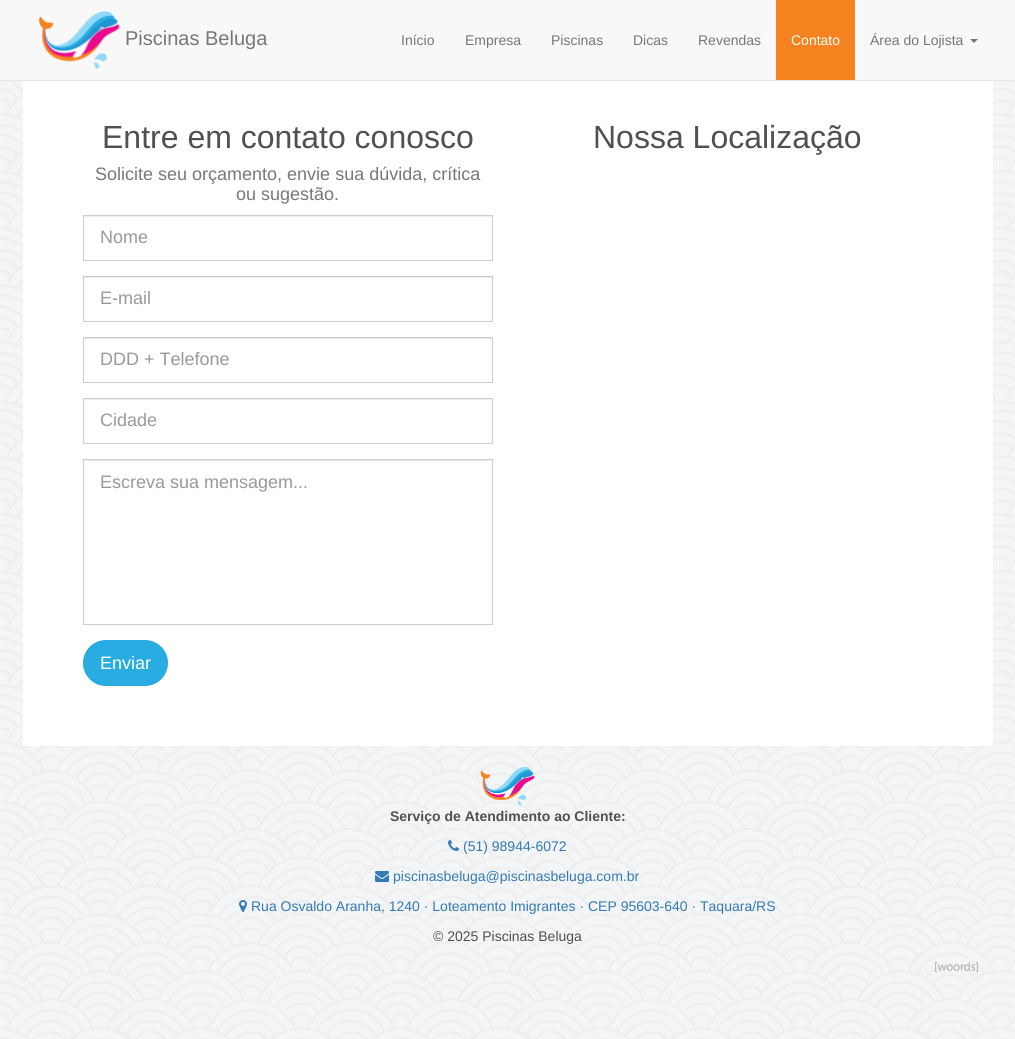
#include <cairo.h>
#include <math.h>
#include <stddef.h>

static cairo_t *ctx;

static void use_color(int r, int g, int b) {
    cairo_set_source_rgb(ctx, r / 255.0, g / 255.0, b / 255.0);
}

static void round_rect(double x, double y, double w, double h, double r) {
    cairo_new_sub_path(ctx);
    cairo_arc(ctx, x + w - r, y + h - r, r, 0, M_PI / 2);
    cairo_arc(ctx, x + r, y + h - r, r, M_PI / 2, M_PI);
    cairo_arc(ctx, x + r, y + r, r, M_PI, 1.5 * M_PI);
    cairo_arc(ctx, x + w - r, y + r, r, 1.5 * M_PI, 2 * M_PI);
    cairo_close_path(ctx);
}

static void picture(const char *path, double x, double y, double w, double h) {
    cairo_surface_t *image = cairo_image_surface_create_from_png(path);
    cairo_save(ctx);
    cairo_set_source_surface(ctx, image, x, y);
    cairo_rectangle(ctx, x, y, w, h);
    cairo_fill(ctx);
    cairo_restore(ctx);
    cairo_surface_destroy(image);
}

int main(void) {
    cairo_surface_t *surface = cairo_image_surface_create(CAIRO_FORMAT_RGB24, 1015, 1039);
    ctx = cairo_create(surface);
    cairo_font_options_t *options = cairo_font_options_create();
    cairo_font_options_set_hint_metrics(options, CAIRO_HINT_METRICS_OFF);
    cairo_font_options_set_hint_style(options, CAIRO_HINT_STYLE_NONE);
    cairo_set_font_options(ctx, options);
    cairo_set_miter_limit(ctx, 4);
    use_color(255, 255, 255);
    cairo_paint(ctx);
    picture("img1.png", 0, 81, 1015, 958);
    use_color(248, 248, 248);
    cairo_rectangle(ctx, 0, 0, 1015, 80);
    cairo_fill(ctx);
    use_color(231, 231, 231);
    cairo_rectangle(ctx, 0, 80, 1015, 1);
    cairo_fill(ctx);
    picture("img2.png", 39, 11, 81, 59);
    cairo_select_font_face(ctx, "Liberation Sans", CAIRO_FONT_SLANT_NORMAL, CAIRO_FONT_WEIGHT_NORMAL);
    cairo_set_font_size(ctx, 20);
    use_color(119, 119, 119);
    cairo_move_to(ctx, 125, 45);
    cairo_show_text(ctx, "Piscinas Beluga");
    cairo_set_font_size(ctx, 14);
    cairo_move_to(ctx, 401, 45);
    cairo_show_text(ctx, "Início");
    cairo_move_to(ctx, 465, 45);
    cairo_show_text(ctx, "Empresa");
    cairo_move_to(ctx, 551, 45);
    cairo_show_text(ctx, "Piscinas");
    cairo_move_to(ctx, 633, 45);
    cairo_show_text(ctx, "Dicas");
    cairo_move_to(ctx, 698, 45);
    cairo_show_text(ctx, "Revendas");
    use_color(245, 131, 32);
    cairo_rectangle(ctx, 776, 0, 79, 80);
    cairo_fill(ctx);
    use_color(255, 255, 255);
    cairo_move_to(ctx, 791, 45);
    cairo_show_text(ctx, "Contato");
    use_color(119, 119, 119);
    cairo_move_to(ctx, 870, 45);
    cairo_show_text(ctx, "Área do Lojista");
    cairo_new_path(ctx);
    cairo_move_to(ctx, 970, 39);
    cairo_line_to(ctx, 978, 39);
    cairo_line_to(ctx, 974, 43);
    cairo_close_path(ctx);
    cairo_fill(ctx);
    use_color(255, 255, 255);
    cairo_rectangle(ctx, 23, 81, 970, 665);
    cairo_fill(ctx);
    cairo_set_font_size(ctx, 32);
    use_color(80, 80, 80);
    cairo_move_to(ctx, 102, 148);
    cairo_show_text(ctx, "Entre em contato conosco");
    cairo_set_font_size(ctx, 18);
    use_color(119, 119, 119);
    cairo_move_to(ctx, 95, 180);
    cairo_show_text(ctx, "Solicite seu orçamento, envie sua dúvida, crítica");
    cairo_move_to(ctx, 236, 200);
    cairo_show_text(ctx, "ou sugestão.");
    use_color(236, 236, 236);
    cairo_rectangle(ctx, 84, 216, 408, 1);
    cairo_fill(ctx);
    cairo_rectangle(ctx, 83.5, 215.5, 409, 45);
    use_color(204, 204, 204);
    cairo_set_line_width(ctx, 1);
    cairo_stroke(ctx);
    use_color(153, 153, 153);
    cairo_move_to(ctx, 100, 243);
    cairo_show_text(ctx, "Nome");
    use_color(236, 236, 236);
    cairo_rectangle(ctx, 84, 277, 408, 1);
    cairo_fill(ctx);
    cairo_rectangle(ctx, 83.5, 276.5, 409, 45);
    use_color(204, 204, 204);
    cairo_stroke(ctx);
    use_color(153, 153, 153);
    cairo_move_to(ctx, 100, 304);
    cairo_show_text(ctx, "E-mail");
    use_color(236, 236, 236);
    cairo_rectangle(ctx, 84, 338, 408, 1);
    cairo_fill(ctx);
    cairo_rectangle(ctx, 83.5, 337.5, 409, 45);
    use_color(204, 204, 204);
    cairo_stroke(ctx);
    use_color(153, 153, 153);
    cairo_move_to(ctx, 100, 365);
    cairo_show_text(ctx, "DDD + Telefone");
    use_color(236, 236, 236);
    cairo_rectangle(ctx, 84, 399, 408, 1);
    cairo_fill(ctx);
    cairo_rectangle(ctx, 83.5, 398.5, 409, 45);
    use_color(204, 204, 204);
    cairo_stroke(ctx);
    use_color(153, 153, 153);
    cairo_move_to(ctx, 100, 426);
    cairo_show_text(ctx, "Cidade");
    use_color(236, 236, 236);
    cairo_rectangle(ctx, 84, 460, 408, 1);
    cairo_fill(ctx);
    cairo_rectangle(ctx, 83.5, 459.5, 409, 165);
    use_color(204, 204, 204);
    cairo_stroke(ctx);
    use_color(153, 153, 153);
    cairo_move_to(ctx, 100, 488);
    cairo_show_text(ctx, "Escreva sua mensagem...");
    use_color(40, 172, 226);
    round_rect(83, 640, 85, 46, 23);
    cairo_fill(ctx);
    use_color(255, 255, 255);
    cairo_move_to(ctx, 100, 669);
    cairo_show_text(ctx, "Enviar");
    cairo_set_font_size(ctx, 32);
    use_color(80, 80, 80);
    cairo_move_to(ctx, 593, 148);
    cairo_show_text(ctx, "Nossa Localização");
    picture("img3.png", 480, 766, 55, 40);
    cairo_select_font_face(ctx, "Liberation Sans", CAIRO_FONT_SLANT_NORMAL, CAIRO_FONT_WEIGHT_BOLD);
    cairo_set_font_size(ctx, 14);
    cairo_move_to(ctx, 390, 821);
    cairo_show_text(ctx, "Serviço de Atendimento ao Cliente:");
    picture("img4.png", 448, 840, 11, 11);
    cairo_select_font_face(ctx, "Liberation Sans", CAIRO_FONT_SLANT_NORMAL, CAIRO_FONT_WEIGHT_NORMAL);
    use_color(51, 122, 183);
    cairo_move_to(ctx, 463, 851);
    cairo_show_text(ctx, "(51) 98944-6072");
    picture("img5.png", 375, 871, 14, 11);
    cairo_move_to(ctx, 393, 881);
    cairo_show_text(ctx, "piscinasbeluga@piscinasbeluga.com.br");
    picture("img6.png", 239, 900, 8, 12);
    cairo_move_to(ctx, 251, 911);
    cairo_show_text(ctx, "Rua Osvaldo Aranha, 1240 · Loteamento Imigrantes · CEP 95603-640 · Taquara/RS");
    use_color(80, 80, 80);
    cairo_move_to(ctx, 433, 941);
    cairo_show_text(ctx, "© 2025 Piscinas Beluga");
    picture("img7.png", 935, 962, 43, 10);
    cairo_surface_write_to_png(surface, "result.png");
    cairo_font_options_destroy(options);
    cairo_destroy(ctx);
    cairo_surface_destroy(surface);
    return 0;
}
